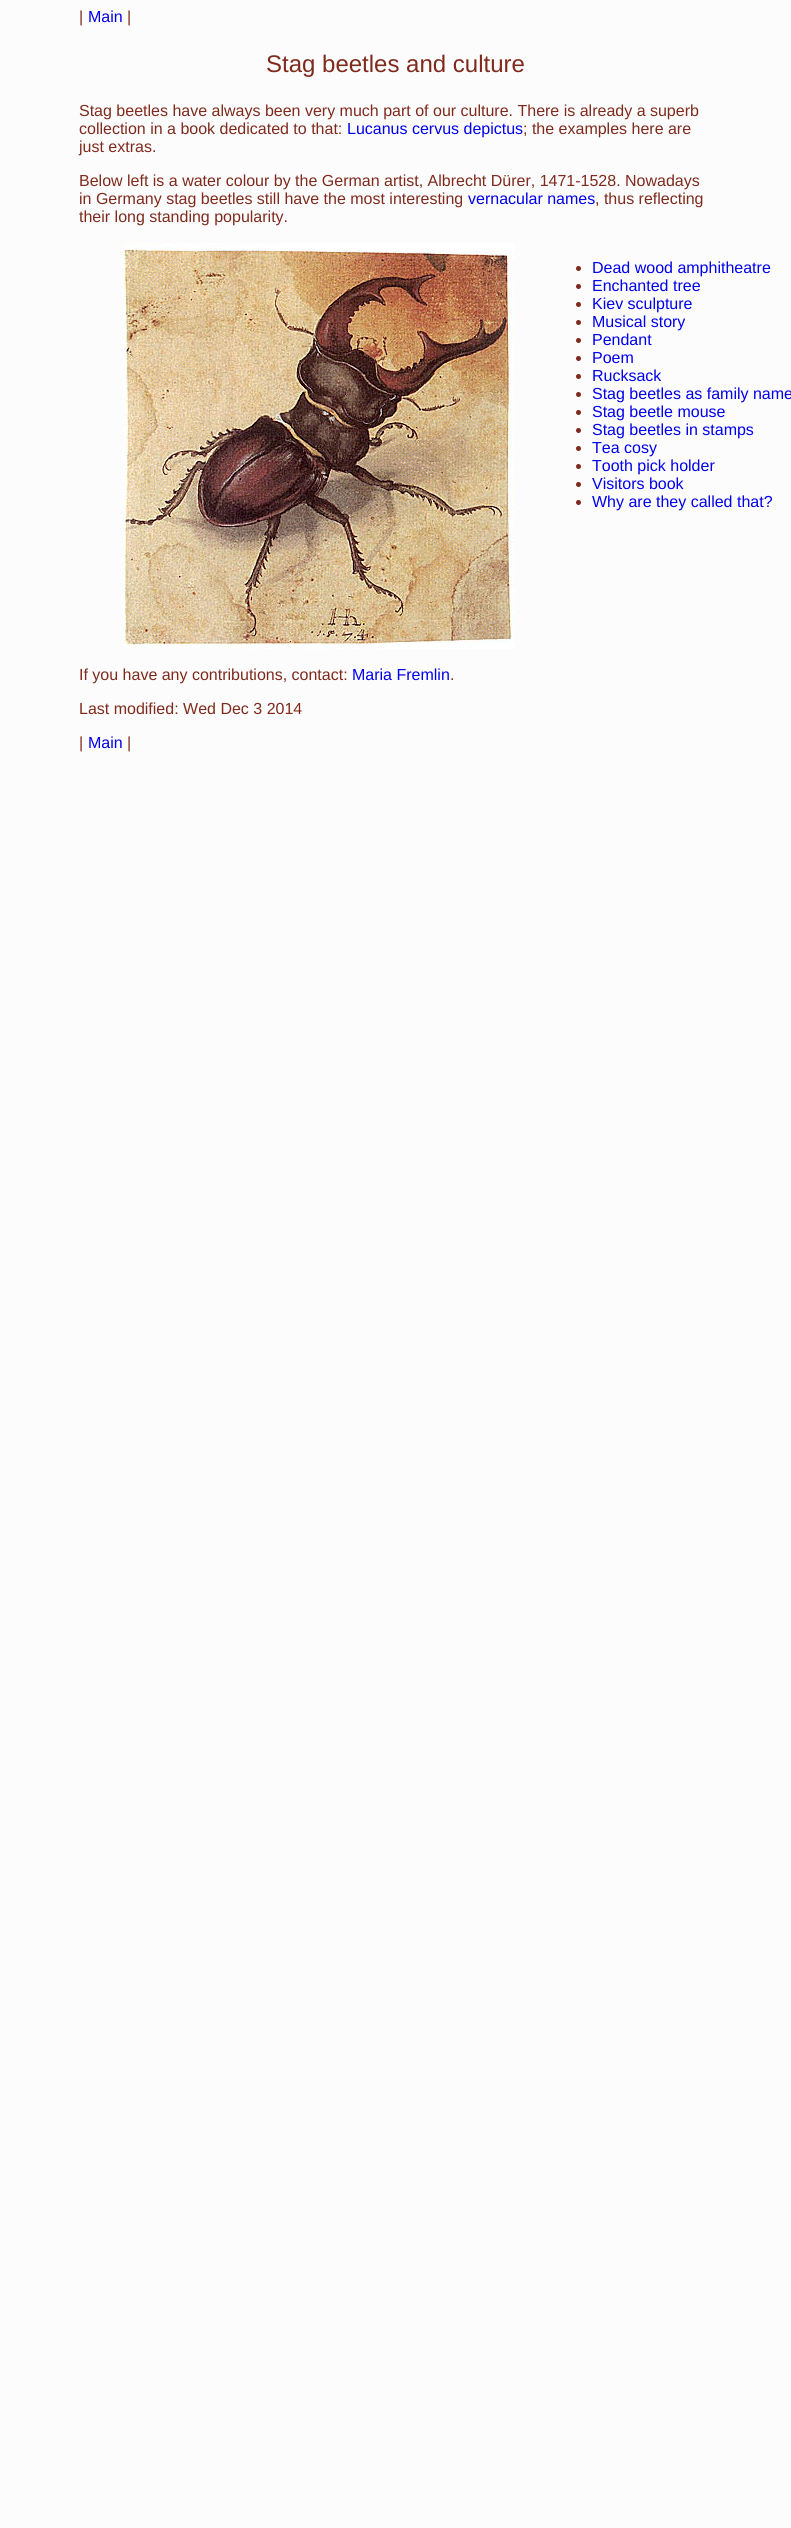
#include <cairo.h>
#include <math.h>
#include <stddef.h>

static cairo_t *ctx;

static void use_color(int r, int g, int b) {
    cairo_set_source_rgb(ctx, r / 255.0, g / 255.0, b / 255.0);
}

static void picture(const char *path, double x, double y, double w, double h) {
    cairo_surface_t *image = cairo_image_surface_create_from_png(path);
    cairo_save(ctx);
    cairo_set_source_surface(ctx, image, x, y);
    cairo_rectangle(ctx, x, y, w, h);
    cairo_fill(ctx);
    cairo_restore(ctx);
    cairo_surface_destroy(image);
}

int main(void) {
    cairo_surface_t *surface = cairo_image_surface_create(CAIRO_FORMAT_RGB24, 791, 2528);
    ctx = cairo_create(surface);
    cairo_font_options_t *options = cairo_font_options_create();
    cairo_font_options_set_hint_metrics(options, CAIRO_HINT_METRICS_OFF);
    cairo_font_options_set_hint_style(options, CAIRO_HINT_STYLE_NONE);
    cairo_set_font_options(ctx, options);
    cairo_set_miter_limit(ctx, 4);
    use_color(252, 252, 252);
    cairo_paint(ctx);
    cairo_select_font_face(ctx, "Liberation Sans", CAIRO_FONT_SLANT_NORMAL, CAIRO_FONT_WEIGHT_NORMAL);
    cairo_set_font_size(ctx, 16);
    use_color(127, 42, 28);
    cairo_move_to(ctx, 79, 22);
    cairo_show_text(ctx, "|");
    use_color(0, 0, 238);
    cairo_move_to(ctx, 88, 22);
    cairo_show_text(ctx, "Main");
    use_color(127, 42, 28);
    cairo_move_to(ctx, 127, 22);
    cairo_show_text(ctx, "|");
    cairo_set_font_size(ctx, 24);
    cairo_move_to(ctx, 266, 72);
    cairo_show_text(ctx, "Stag beetles and culture");
    cairo_set_font_size(ctx, 16);
    cairo_move_to(ctx, 79, 116);
    cairo_show_text(ctx, "Stag beetles have always been very much part of our culture. There is already a superb");
    cairo_move_to(ctx, 79, 134);
    cairo_show_text(ctx, "collection in a book dedicated to that:");
    use_color(0, 0, 238);
    cairo_move_to(ctx, 347, 134);
    cairo_show_text(ctx, "Lucanus cervus depictus");
    use_color(127, 42, 28);
    cairo_move_to(ctx, 523, 134);
    cairo_show_text(ctx, "; the examples here are");
    cairo_move_to(ctx, 79, 152);
    cairo_show_text(ctx, "just extras.");
    cairo_move_to(ctx, 79, 186);
    cairo_show_text(ctx, "Below left is a water colour by the German artist, Albrecht Dürer, 1471-1528. Nowadays");
    cairo_move_to(ctx, 79, 204);
    cairo_show_text(ctx, "in Germany stag beetles still have the most interesting");
    use_color(0, 0, 238);
    cairo_move_to(ctx, 468, 204);
    cairo_show_text(ctx, "vernacular names");
    use_color(127, 42, 28);
    cairo_move_to(ctx, 595, 204);
    cairo_show_text(ctx, ", thus reflecting");
    cairo_move_to(ctx, 79, 222);
    cairo_show_text(ctx, "their long standing popularity.");
    picture("img1.png", 123, 243, 392, 406);
    cairo_arc(ctx, 578.5, 268.5, 2.5, 0, 2 * M_PI);
    cairo_fill(ctx);
    use_color(0, 0, 238);
    cairo_move_to(ctx, 592, 273);
    cairo_show_text(ctx, "Dead wood amphitheatre");
    use_color(127, 42, 28);
    cairo_new_path(ctx);
    cairo_arc(ctx, 578.5, 286.5, 2.5, 0, 2 * M_PI);
    cairo_fill(ctx);
    use_color(0, 0, 238);
    cairo_move_to(ctx, 592, 291);
    cairo_show_text(ctx, "Enchanted tree");
    use_color(127, 42, 28);
    cairo_new_path(ctx);
    cairo_arc(ctx, 578.5, 304.5, 2.5, 0, 2 * M_PI);
    cairo_fill(ctx);
    use_color(0, 0, 238);
    cairo_move_to(ctx, 592, 309);
    cairo_show_text(ctx, "Kiev sculpture");
    use_color(127, 42, 28);
    cairo_new_path(ctx);
    cairo_arc(ctx, 578.5, 322.5, 2.5, 0, 2 * M_PI);
    cairo_fill(ctx);
    use_color(0, 0, 238);
    cairo_move_to(ctx, 592, 327);
    cairo_show_text(ctx, "Musical story");
    use_color(127, 42, 28);
    cairo_new_path(ctx);
    cairo_arc(ctx, 578.5, 340.5, 2.5, 0, 2 * M_PI);
    cairo_fill(ctx);
    use_color(0, 0, 238);
    cairo_move_to(ctx, 592, 345);
    cairo_show_text(ctx, "Pendant");
    use_color(127, 42, 28);
    cairo_new_path(ctx);
    cairo_arc(ctx, 578.5, 358.5, 2.5, 0, 2 * M_PI);
    cairo_fill(ctx);
    use_color(0, 0, 238);
    cairo_move_to(ctx, 592, 363);
    cairo_show_text(ctx, "Poem");
    use_color(127, 42, 28);
    cairo_new_path(ctx);
    cairo_arc(ctx, 578.5, 376.5, 2.5, 0, 2 * M_PI);
    cairo_fill(ctx);
    use_color(0, 0, 238);
    cairo_move_to(ctx, 592, 381);
    cairo_show_text(ctx, "Rucksack");
    use_color(127, 42, 28);
    cairo_new_path(ctx);
    cairo_arc(ctx, 578.5, 394.5, 2.5, 0, 2 * M_PI);
    cairo_fill(ctx);
    use_color(0, 0, 238);
    cairo_move_to(ctx, 592, 399);
    cairo_show_text(ctx, "Stag beetles as family name");
    use_color(127, 42, 28);
    cairo_new_path(ctx);
    cairo_arc(ctx, 578.5, 412.5, 2.5, 0, 2 * M_PI);
    cairo_fill(ctx);
    use_color(0, 0, 238);
    cairo_move_to(ctx, 592, 417);
    cairo_show_text(ctx, "Stag beetle mouse");
    use_color(127, 42, 28);
    cairo_new_path(ctx);
    cairo_arc(ctx, 578.5, 430.5, 2.5, 0, 2 * M_PI);
    cairo_fill(ctx);
    use_color(0, 0, 238);
    cairo_move_to(ctx, 592, 435);
    cairo_show_text(ctx, "Stag beetles in stamps");
    use_color(127, 42, 28);
    cairo_new_path(ctx);
    cairo_arc(ctx, 578.5, 448.5, 2.5, 0, 2 * M_PI);
    cairo_fill(ctx);
    use_color(0, 0, 238);
    cairo_move_to(ctx, 592, 453);
    cairo_show_text(ctx, "Tea cosy");
    use_color(127, 42, 28);
    cairo_new_path(ctx);
    cairo_arc(ctx, 578.5, 466.5, 2.5, 0, 2 * M_PI);
    cairo_fill(ctx);
    use_color(0, 0, 238);
    cairo_move_to(ctx, 592, 471);
    cairo_show_text(ctx, "Tooth pick holder");
    use_color(127, 42, 28);
    cairo_new_path(ctx);
    cairo_arc(ctx, 578.5, 484.5, 2.5, 0, 2 * M_PI);
    cairo_fill(ctx);
    use_color(0, 0, 238);
    cairo_move_to(ctx, 592, 489);
    cairo_show_text(ctx, "Visitors book");
    use_color(127, 42, 28);
    cairo_new_path(ctx);
    cairo_arc(ctx, 578.5, 502.5, 2.5, 0, 2 * M_PI);
    cairo_fill(ctx);
    use_color(0, 0, 238);
    cairo_move_to(ctx, 592, 507);
    cairo_show_text(ctx, "Why are they called that?");
    use_color(127, 42, 28);
    cairo_move_to(ctx, 79, 680);
    cairo_show_text(ctx, "If you have any contributions, contact:");
    use_color(0, 0, 238);
    cairo_move_to(ctx, 352, 680);
    cairo_show_text(ctx, "Maria Fremlin");
    use_color(127, 42, 28);
    cairo_move_to(ctx, 450, 680);
    cairo_show_text(ctx, ".");
    cairo_move_to(ctx, 79, 714);
    cairo_show_text(ctx, "Last modified: Wed Dec 3 2014");
    cairo_move_to(ctx, 79, 748);
    cairo_show_text(ctx, "|");
    use_color(0, 0, 238);
    cairo_move_to(ctx, 88, 748);
    cairo_show_text(ctx, "Main");
    use_color(127, 42, 28);
    cairo_move_to(ctx, 127, 748);
    cairo_show_text(ctx, "|");
    cairo_surface_write_to_png(surface, "result.png");
    cairo_font_options_destroy(options);
    cairo_destroy(ctx);
    cairo_surface_destroy(surface);
    return 0;
}
